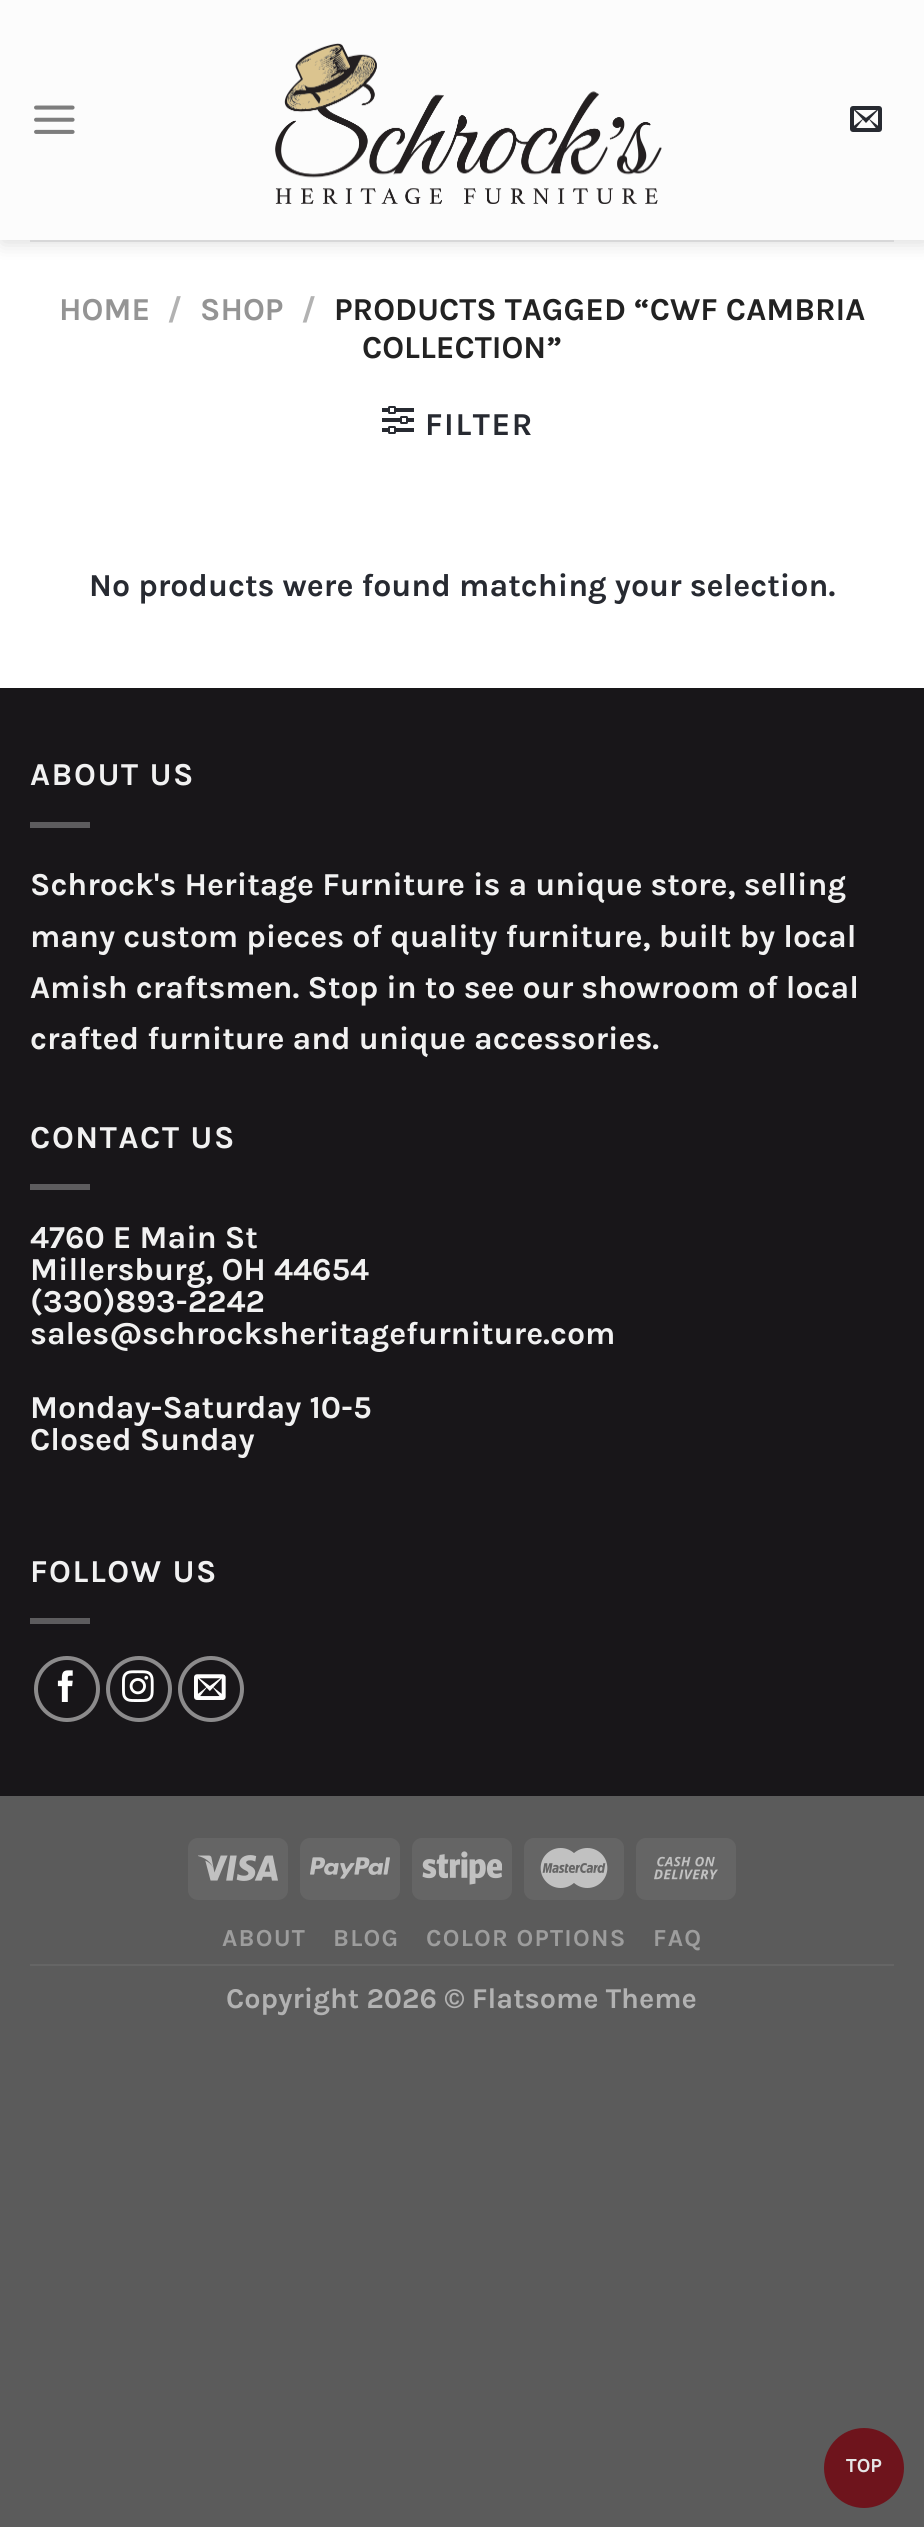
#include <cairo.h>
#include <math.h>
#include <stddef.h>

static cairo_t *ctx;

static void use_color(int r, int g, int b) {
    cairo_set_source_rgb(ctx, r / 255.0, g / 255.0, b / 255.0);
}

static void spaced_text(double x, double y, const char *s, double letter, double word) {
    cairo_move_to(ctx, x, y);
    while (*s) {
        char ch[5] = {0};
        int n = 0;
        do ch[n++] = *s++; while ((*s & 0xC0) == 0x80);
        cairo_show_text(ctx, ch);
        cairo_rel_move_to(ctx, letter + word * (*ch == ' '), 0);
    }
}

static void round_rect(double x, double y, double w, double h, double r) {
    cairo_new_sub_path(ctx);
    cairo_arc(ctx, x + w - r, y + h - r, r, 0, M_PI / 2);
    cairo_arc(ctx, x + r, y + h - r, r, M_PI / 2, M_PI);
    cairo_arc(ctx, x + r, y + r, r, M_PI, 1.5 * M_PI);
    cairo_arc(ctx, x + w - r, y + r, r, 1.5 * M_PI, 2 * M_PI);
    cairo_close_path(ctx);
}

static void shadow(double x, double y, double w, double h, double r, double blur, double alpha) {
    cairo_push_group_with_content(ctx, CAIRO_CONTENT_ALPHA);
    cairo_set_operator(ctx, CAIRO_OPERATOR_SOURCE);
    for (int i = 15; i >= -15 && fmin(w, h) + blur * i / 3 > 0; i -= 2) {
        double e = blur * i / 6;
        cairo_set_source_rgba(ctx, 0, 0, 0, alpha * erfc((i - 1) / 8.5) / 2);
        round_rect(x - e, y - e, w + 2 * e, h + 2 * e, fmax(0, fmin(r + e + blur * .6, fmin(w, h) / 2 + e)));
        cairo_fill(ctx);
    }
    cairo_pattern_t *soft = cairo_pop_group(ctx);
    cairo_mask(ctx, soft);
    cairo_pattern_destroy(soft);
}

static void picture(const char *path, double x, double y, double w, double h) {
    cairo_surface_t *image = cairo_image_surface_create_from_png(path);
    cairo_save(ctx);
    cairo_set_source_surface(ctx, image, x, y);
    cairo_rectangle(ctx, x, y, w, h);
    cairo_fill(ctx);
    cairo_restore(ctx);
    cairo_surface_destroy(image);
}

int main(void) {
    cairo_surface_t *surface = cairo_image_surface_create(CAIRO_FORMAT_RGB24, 924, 2527);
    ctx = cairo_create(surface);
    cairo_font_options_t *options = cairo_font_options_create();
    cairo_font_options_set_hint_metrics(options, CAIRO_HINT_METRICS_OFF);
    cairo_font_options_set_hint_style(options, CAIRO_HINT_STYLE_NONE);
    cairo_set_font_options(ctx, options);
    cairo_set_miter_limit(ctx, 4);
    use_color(91, 91, 91);
    cairo_paint(ctx);
    use_color(255, 255, 255);
    cairo_rectangle(ctx, 0, 240, 924, 448);
    cairo_fill(ctx);
    use_color(0, 0, 0);
    shadow(2, 2, 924, 240, 0, 10, 0.15);
    use_color(252, 252, 252);
    cairo_rectangle(ctx, 0, 0, 924, 240);
    cairo_fill(ctx);
    picture("img1.png", 34, 105, 41, 29);
    picture("img2.png", 275, 43, 387, 161);
    picture("img3.png", 850, 106, 32, 26);
    use_color(215, 215, 216);
    cairo_rectangle(ctx, 30, 240, 864, 2);
    cairo_fill(ctx);
    cairo_select_font_face(ctx, "Karla", CAIRO_FONT_SLANT_NORMAL, CAIRO_FONT_WEIGHT_BOLD);
    cairo_set_font_size(ctx, 32);
    use_color(148, 148, 148);
    cairo_move_to(ctx, 59, 320);
    cairo_show_text(ctx, "HOME");
    use_color(178, 178, 178);
    cairo_move_to(ctx, 167, 320);
    cairo_show_text(ctx, "/");
    use_color(148, 148, 148);
    cairo_move_to(ctx, 200, 320);
    cairo_show_text(ctx, "SHOP");
    use_color(178, 178, 178);
    cairo_move_to(ctx, 301, 320);
    cairo_show_text(ctx, "/");
    use_color(34, 34, 34);
    cairo_move_to(ctx, 334, 320);
    cairo_show_text(ctx, "PRODUCTS TAGGED “CWF CAMBRIA");
    cairo_move_to(ctx, 362, 358);
    cairo_show_text(ctx, "COLLECTION”");
    picture("img4.png", 382, 406, 32, 28);
    use_color(39, 42, 49);
    spaced_text(425, 435, "FILTER", 1.6, 0);
    cairo_move_to(ctx, 89, 596);
    cairo_show_text(ctx, "No products were found matching your selection.");
    use_color(24, 22, 25);
    cairo_rectangle(ctx, 0, 688, 924, 1108);
    cairo_fill(ctx);
    use_color(241, 241, 241);
    spaced_text(30, 785, "ABOUT US", 1.6, 0);
    use_color(93, 92, 94);
    cairo_rectangle(ctx, 30, 822, 60, 6);
    cairo_fill(ctx);
    use_color(241, 241, 241);
    cairo_move_to(ctx, 30, 895);
    cairo_show_text(ctx, "Schrock's Heritage Furniture is a unique store, selling");
    cairo_move_to(ctx, 30, 947);
    cairo_show_text(ctx, "many custom pieces of quality furniture, built by local");
    cairo_move_to(ctx, 30, 998);
    cairo_show_text(ctx, "Amish craftsmen. Stop in to see our showroom of local");
    cairo_move_to(ctx, 30, 1049);
    cairo_show_text(ctx, "crafted furniture and unique accessories.");
    spaced_text(30, 1148, "CONTACT US", 1.6, 0);
    use_color(93, 92, 94);
    cairo_rectangle(ctx, 30, 1184, 60, 6);
    cairo_fill(ctx);
    use_color(241, 241, 241);
    cairo_move_to(ctx, 30, 1248);
    cairo_show_text(ctx, "4760 E Main St");
    cairo_move_to(ctx, 30, 1280);
    cairo_show_text(ctx, "Millersburg, OH 44654");
    cairo_move_to(ctx, 30, 1312);
    cairo_show_text(ctx, "(330)893-2242");
    cairo_move_to(ctx, 30, 1344);
    cairo_show_text(ctx, "sales@schrocksheritagefurniture.com");
    cairo_move_to(ctx, 30, 1418);
    cairo_show_text(ctx, "Monday-Saturday 10-5");
    cairo_move_to(ctx, 30, 1450);
    cairo_show_text(ctx, "Closed Sunday");
    spaced_text(30, 1582, "FOLLOW US", 1.6, 0);
    use_color(93, 92, 94);
    cairo_rectangle(ctx, 30, 1618, 60, 6);
    cairo_fill(ctx);
    cairo_arc(ctx, 67, 1689, 31, 0, 2 * M_PI);
    use_color(140, 139, 140);
    cairo_set_line_width(ctx, 4);
    cairo_stroke(ctx);
    picture("img5.png", 57, 1670, 16, 32);
    cairo_arc(ctx, 139, 1689, 31, 0, 2 * M_PI);
    cairo_stroke(ctx);
    picture("img6.png", 122, 1670, 32, 32);
    cairo_arc(ctx, 211, 1689, 31, 0, 2 * M_PI);
    cairo_stroke(ctx);
    picture("img7.png", 194, 1674, 32, 26);
    use_color(101, 101, 101);
    round_rect(188, 1838, 100, 62, 10);
    cairo_fill(ctx);
    picture("img8.png", 198, 1855, 80, 26);
    round_rect(300, 1838, 100, 62, 10);
    cairo_fill(ctx);
    picture("img9.png", 310, 1857, 80, 22);
    round_rect(412, 1838, 100, 62, 10);
    cairo_fill(ctx);
    picture("img10.png", 422, 1851, 80, 34);
    round_rect(524, 1838, 100, 62, 10);
    cairo_fill(ctx);
    picture("img11.png", 540, 1848, 68, 40);
    round_rect(636, 1838, 100, 62, 10);
    cairo_fill(ctx);
    picture("img12.png", 654, 1856, 64, 24);
    cairo_rectangle(ctx, 30, 1964, 864, 2);
    cairo_fill(ctx);
    cairo_set_font_size(ctx, 24.5);
    use_color(157, 157, 157);
    spaced_text(222, 1946, "ABOUT", 1.25, 0);
    spaced_text(333, 1946, "BLOG", 1.25, 0);
    spaced_text(426, 1946, "COLOR OPTIONS", 1.25, 0);
    spaced_text(653, 1946, "FAQ", 1.25, 0);
    cairo_set_font_size(ctx, 28.75);
    use_color(178, 178, 178);
    cairo_move_to(ctx, 226, 2008);
    cairo_show_text(ctx, "Copyright 2026 © Flatsome Theme");
    use_color(110, 20, 28);
    cairo_new_path(ctx);
    cairo_arc(ctx, 864, 2468, 40, 0, 2 * M_PI);
    cairo_fill(ctx);
    cairo_set_font_size(ctx, 20);
    use_color(230, 230, 230);
    cairo_move_to(ctx, 846, 2472);
    cairo_show_text(ctx, "TOP");
    cairo_surface_write_to_png(surface, "result.png");
    cairo_font_options_destroy(options);
    cairo_destroy(ctx);
    cairo_surface_destroy(surface);
    return 0;
}
